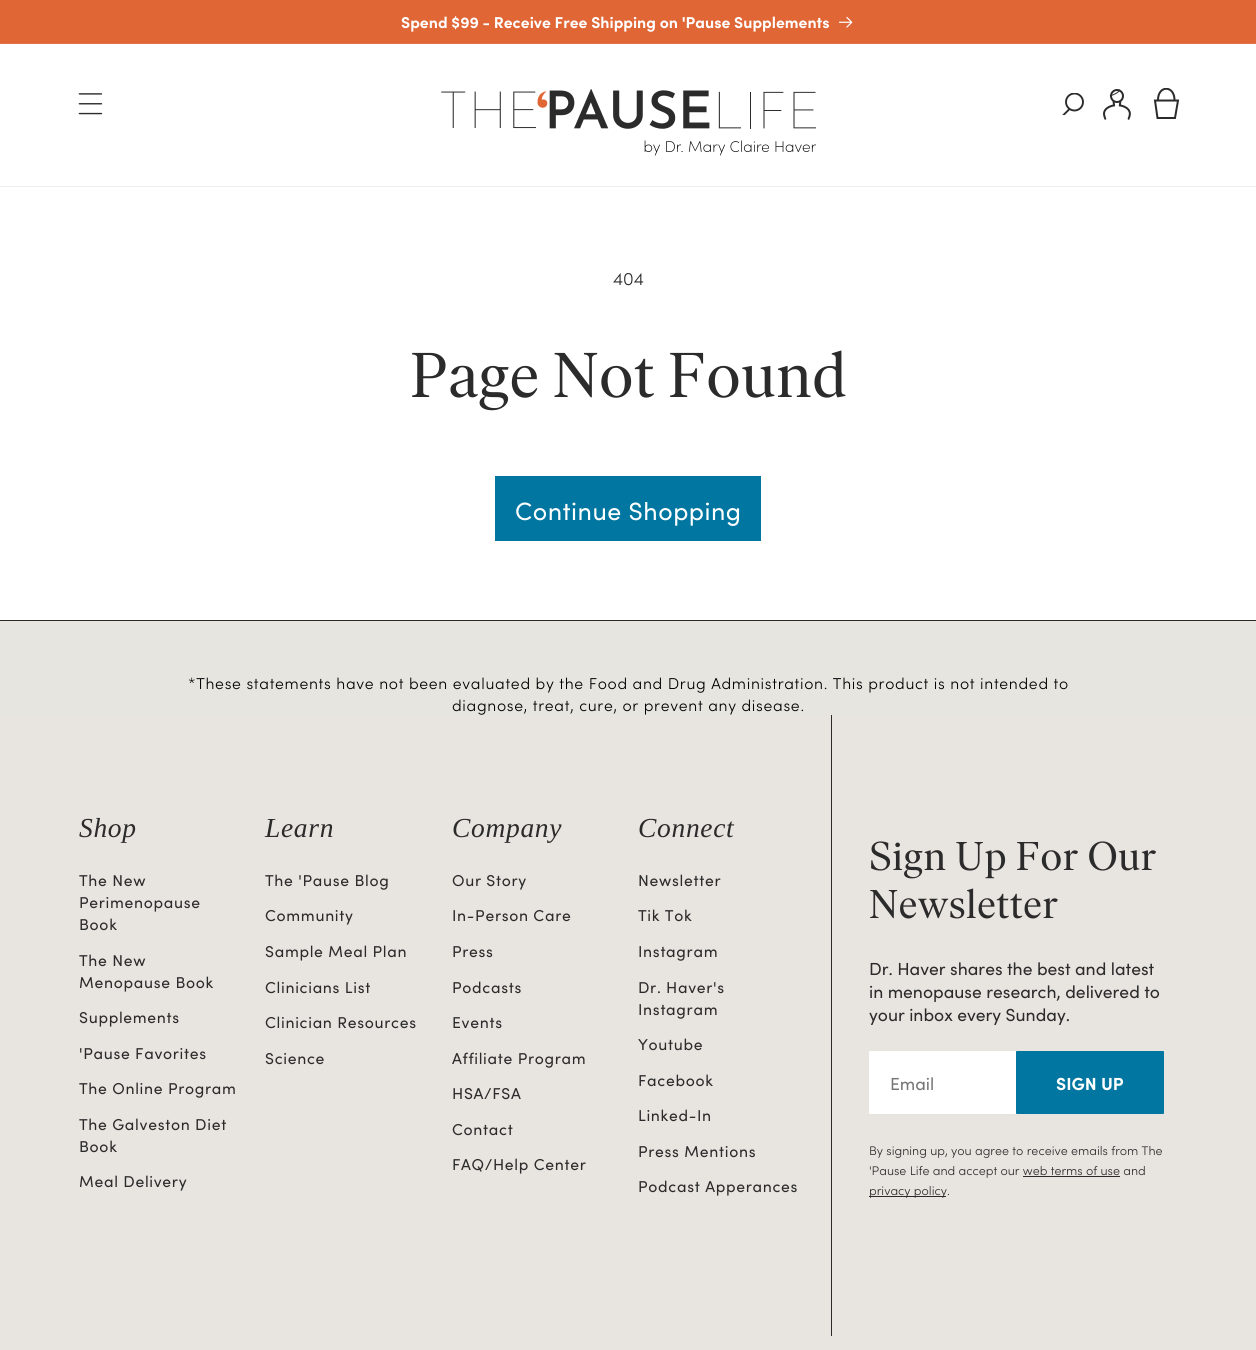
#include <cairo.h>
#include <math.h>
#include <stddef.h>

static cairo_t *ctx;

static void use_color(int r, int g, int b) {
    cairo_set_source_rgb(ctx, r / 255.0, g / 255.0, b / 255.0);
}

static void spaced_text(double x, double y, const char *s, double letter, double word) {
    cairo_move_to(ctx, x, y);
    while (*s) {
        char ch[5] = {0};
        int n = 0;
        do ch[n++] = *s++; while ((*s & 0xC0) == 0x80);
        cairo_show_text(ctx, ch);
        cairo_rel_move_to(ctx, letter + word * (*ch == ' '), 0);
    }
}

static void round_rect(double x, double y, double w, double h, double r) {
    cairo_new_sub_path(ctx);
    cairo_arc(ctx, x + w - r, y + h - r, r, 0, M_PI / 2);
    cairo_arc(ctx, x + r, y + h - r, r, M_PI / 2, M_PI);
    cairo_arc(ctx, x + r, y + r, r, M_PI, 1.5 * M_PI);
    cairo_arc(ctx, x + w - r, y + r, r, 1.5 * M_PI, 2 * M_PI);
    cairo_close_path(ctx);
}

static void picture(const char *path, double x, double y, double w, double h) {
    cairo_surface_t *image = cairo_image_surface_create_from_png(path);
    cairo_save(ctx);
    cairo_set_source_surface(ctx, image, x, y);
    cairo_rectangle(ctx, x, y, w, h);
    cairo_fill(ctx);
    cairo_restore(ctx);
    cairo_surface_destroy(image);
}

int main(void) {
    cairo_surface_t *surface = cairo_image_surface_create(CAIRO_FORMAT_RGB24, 1256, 1350);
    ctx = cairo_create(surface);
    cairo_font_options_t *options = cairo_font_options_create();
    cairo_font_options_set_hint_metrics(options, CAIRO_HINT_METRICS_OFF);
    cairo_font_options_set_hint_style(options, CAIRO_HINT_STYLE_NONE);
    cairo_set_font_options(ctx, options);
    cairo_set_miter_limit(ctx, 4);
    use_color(255, 255, 255);
    cairo_paint(ctx);
    use_color(224, 102, 54);
    cairo_rectangle(ctx, 0, 0, 1256, 43);
    cairo_fill(ctx);
    use_color(226, 114, 70);
    cairo_rectangle(ctx, 0, 43, 1256, 1);
    cairo_fill(ctx);
    cairo_select_font_face(ctx, "Sofia", CAIRO_FONT_SLANT_NORMAL, CAIRO_FONT_WEIGHT_BOLD);
    cairo_set_font_size(ctx, 15.75);
    use_color(255, 255, 255);
    cairo_move_to(ctx, 401, 28);
    cairo_show_text(ctx, "Spend $99 - Receive Free Shipping on 'Pause Supplements");
    picture("img1.png", 839, 16, 14, 12);
    use_color(238, 238, 238);
    cairo_rectangle(ctx, 0, 186, 1256, 1);
    cairo_fill(ctx);
    picture("img2.png", 78, 93, 25, 22);
    picture("img3.png", 441, 89, 375, 67);
    cairo_save(ctx);
    cairo_rectangle(ctx, 1050, 93, 34, 22);
    cairo_clip(ctx);
    cairo_arc(ctx, 1074.5, 102, 8.5, 0, 2 * M_PI);
    use_color(44, 43, 43);
    cairo_set_line_width(ctx, 1.9);
    cairo_stroke(ctx);
    cairo_new_path(ctx);
    cairo_move_to(ctx, 1069, 109.5);
    cairo_line_to(ctx, 1057.5, 121);
    cairo_set_line_cap(ctx, CAIRO_LINE_CAP_ROUND);
    cairo_stroke(ctx);
    cairo_restore(ctx);
    picture("img4.png", 1103, 89, 28, 31);
    cairo_new_path(ctx);
    cairo_move_to(ctx, 1157.5, 118);
    cairo_line_to(ctx, 1155, 100.5);
    cairo_line_to(ctx, 1178, 100.5);
    cairo_line_to(ctx, 1175, 118);
    cairo_close_path(ctx);
    use_color(44, 43, 43);
    cairo_stroke(ctx);
    cairo_save(ctx);
    cairo_rectangle(ctx, 1154, 88, 26, 32);
    cairo_clip(ctx);
    cairo_new_path(ctx);
    cairo_move_to(ctx, 1174.5, 100);
    cairo_curve_to(ctx, 1174.5, 85, 1158, 85, 1158, 100);
    cairo_stroke(ctx);
    cairo_restore(ctx);
    cairo_select_font_face(ctx, "Sofia Light", CAIRO_FONT_SLANT_NORMAL, CAIRO_FONT_WEIGHT_NORMAL);
    cairo_set_font_size(ctx, 18);
    cairo_move_to(ctx, 613, 285);
    cairo_show_text(ctx, "404");
    cairo_select_font_face(ctx, "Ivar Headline", CAIRO_FONT_SLANT_NORMAL, CAIRO_FONT_WEIGHT_NORMAL);
    cairo_set_font_size(ctx, 63);
    spaced_text(410, 397, "Page Not Found", 0.68, 0);
    use_color(0, 118, 160);
    cairo_rectangle(ctx, 495, 476, 266, 65);
    cairo_fill(ctx);
    cairo_select_font_face(ctx, "Sofia", CAIRO_FONT_SLANT_NORMAL, CAIRO_FONT_WEIGHT_NORMAL);
    cairo_set_font_size(ctx, 25);
    use_color(255, 255, 255);
    spaced_text(515, 520, "Continue Shopping", 0.5, 0);
    use_color(231, 229, 223);
    cairo_rectangle(ctx, 0, 621, 1256, 94);
    cairo_fill(ctx);
    use_color(44, 43, 43);
    cairo_rectangle(ctx, 0, 620, 1256, 1);
    cairo_fill(ctx);
    cairo_select_font_face(ctx, "Sofia Light", CAIRO_FONT_SLANT_NORMAL, CAIRO_FONT_WEIGHT_NORMAL);
    cairo_set_font_size(ctx, 15.75);
    use_color(0, 0, 0);
    spaced_text(188, 689, "*These statements have not been evaluated by the Food and Drug Administration. This product is not intended to", 0.68, 0);
    spaced_text(452, 711, "diagnose, treat, cure, or prevent any disease.", 0.68, 0);
    use_color(232, 229, 224);
    cairo_rectangle(ctx, 0, 715, 1256, 635);
    cairo_fill(ctx);
    cairo_select_font_face(ctx, "Liberation Serif", CAIRO_FONT_SLANT_ITALIC, CAIRO_FONT_WEIGHT_NORMAL);
    cairo_set_font_size(ctx, 27.5);
    use_color(44, 43, 43);
    spaced_text(79, 837, "Shop", 0.68, 0);
    cairo_select_font_face(ctx, "Sofia", CAIRO_FONT_SLANT_NORMAL, CAIRO_FONT_WEIGHT_NORMAL);
    cairo_set_font_size(ctx, 15.75);
    spaced_text(79, 886, "The New", 0.68, 0);
    spaced_text(79, 908, "Perimenopause", 0.68, 0);
    spaced_text(79, 930, "Book", 0.68, 0);
    spaced_text(79, 966, "The New", 0.68, 0);
    spaced_text(79, 988, "Menopause Book", 0.68, 0);
    spaced_text(79, 1023, "Supplements", 0.68, 0);
    spaced_text(79, 1059, "'Pause Favorites", 0.68, 0);
    spaced_text(79, 1094, "The Online Program", 0.68, 0);
    spaced_text(79, 1130, "The Galveston Diet", 0.68, 0);
    spaced_text(79, 1152, "Book", 0.68, 0);
    spaced_text(79, 1187, "Meal Delivery", 0.68, 0);
    cairo_select_font_face(ctx, "Liberation Serif", CAIRO_FONT_SLANT_ITALIC, CAIRO_FONT_WEIGHT_NORMAL);
    cairo_set_font_size(ctx, 27.5);
    spaced_text(265, 837, "Learn", 0.68, 0);
    cairo_select_font_face(ctx, "Sofia", CAIRO_FONT_SLANT_NORMAL, CAIRO_FONT_WEIGHT_NORMAL);
    cairo_set_font_size(ctx, 15.75);
    spaced_text(265, 886, "The 'Pause Blog", 0.68, 0);
    spaced_text(265, 921, "Community", 0.68, 0);
    spaced_text(265, 957, "Sample Meal Plan", 0.68, 0);
    spaced_text(265, 993, "Clinicians List", 0.68, 0);
    spaced_text(265, 1028, "Clinician Resources", 0.68, 0);
    spaced_text(265, 1064, "Science", 0.68, 0);
    cairo_select_font_face(ctx, "Liberation Serif", CAIRO_FONT_SLANT_ITALIC, CAIRO_FONT_WEIGHT_NORMAL);
    cairo_set_font_size(ctx, 27.5);
    spaced_text(452, 837, "Company", 0.68, 0);
    cairo_select_font_face(ctx, "Sofia", CAIRO_FONT_SLANT_NORMAL, CAIRO_FONT_WEIGHT_NORMAL);
    cairo_set_font_size(ctx, 15.75);
    spaced_text(452, 886, "Our Story", 0.68, 0);
    spaced_text(452, 921, "In-Person Care", 0.68, 0);
    spaced_text(452, 957, "Press", 0.68, 0);
    spaced_text(452, 993, "Podcasts", 0.68, 0);
    spaced_text(452, 1028, "Events", 0.68, 0);
    spaced_text(452, 1064, "Affiliate Program", 0.68, 0);
    spaced_text(452, 1099, "HSA/FSA", 0.68, 0);
    spaced_text(452, 1135, "Contact", 0.68, 0);
    spaced_text(452, 1170, "FAQ/Help Center", 0.68, 0);
    cairo_select_font_face(ctx, "Liberation Serif", CAIRO_FONT_SLANT_ITALIC, CAIRO_FONT_WEIGHT_NORMAL);
    cairo_set_font_size(ctx, 27.5);
    spaced_text(638, 837, "Connect", 0.68, 0);
    cairo_select_font_face(ctx, "Sofia", CAIRO_FONT_SLANT_NORMAL, CAIRO_FONT_WEIGHT_NORMAL);
    cairo_set_font_size(ctx, 15.75);
    spaced_text(638, 886, "Newsletter", 0.68, 0);
    spaced_text(638, 921, "Tik Tok", 0.68, 0);
    spaced_text(638, 957, "Instagram", 0.68, 0);
    spaced_text(638, 993, "Dr. Haver's", 0.68, 0);
    spaced_text(638, 1015, "Instagram", 0.68, 0);
    spaced_text(638, 1050, "Youtube", 0.68, 0);
    spaced_text(638, 1086, "Facebook", 0.68, 0);
    spaced_text(638, 1121, "Linked-In", 0.68, 0);
    spaced_text(638, 1157, "Press Mentions", 0.68, 0);
    spaced_text(638, 1192, "Podcast Apperances", 0.68, 0);
    cairo_rectangle(ctx, 831, 715, 1, 621);
    cairo_fill(ctx);
    cairo_select_font_face(ctx, "Ivar Headline", CAIRO_FONT_SLANT_NORMAL, CAIRO_FONT_WEIGHT_NORMAL);
    cairo_set_font_size(ctx, 40);
    spaced_text(869, 870, "Sign Up For Our", 0.68, 0);
    spaced_text(869, 918, "Newsletter", 0.68, 0);
    cairo_select_font_face(ctx, "Sofia", CAIRO_FONT_SLANT_NORMAL, CAIRO_FONT_WEIGHT_NORMAL);
    cairo_set_font_size(ctx, 17.5);
    cairo_move_to(ctx, 869, 975);
    cairo_show_text(ctx, "Dr. Haver shares the best and latest");
    cairo_move_to(ctx, 869, 998);
    cairo_show_text(ctx, "in menopause research, delivered to");
    cairo_move_to(ctx, 869, 1021);
    cairo_show_text(ctx, "your inbox every Sunday.");
    use_color(255, 255, 255);
    round_rect(869.5, 1051.5, 146, 62, 0.5);
    cairo_fill_preserve(ctx);
    cairo_set_line_width(ctx, 1);
    cairo_stroke(ctx);
    use_color(118, 118, 118);
    cairo_move_to(ctx, 890, 1090);
    cairo_show_text(ctx, "Email");
    use_color(0, 118, 160);
    round_rect(1016, 1051, 148, 63, 1);
    cairo_fill(ctx);
    cairo_select_font_face(ctx, "Sofia", CAIRO_FONT_SLANT_NORMAL, CAIRO_FONT_WEIGHT_BOLD);
    use_color(255, 255, 255);
    cairo_move_to(ctx, 1056, 1090);
    cairo_show_text(ctx, "SIGN UP");
    cairo_select_font_face(ctx, "Sofia Light", CAIRO_FONT_SLANT_NORMAL, CAIRO_FONT_WEIGHT_NORMAL);
    cairo_set_font_size(ctx, 12.5);
    use_color(44, 43, 43);
    cairo_move_to(ctx, 869, 1155);
    cairo_show_text(ctx, "By signing up, you agree to receive emails from The");
    cairo_move_to(ctx, 869, 1175);
    cairo_show_text(ctx, "'Pause Life and accept our web terms of use and");
    cairo_rectangle(ctx, 1023, 1176, 97, 1);
    cairo_fill(ctx);
    cairo_rectangle(ctx, 869, 1196, 77, 1);
    cairo_fill(ctx);
    cairo_move_to(ctx, 869, 1195);
    cairo_show_text(ctx, "privacy policy.");
    cairo_surface_write_to_png(surface, "result.png");
    cairo_font_options_destroy(options);
    cairo_destroy(ctx);
    cairo_surface_destroy(surface);
    return 0;
}
